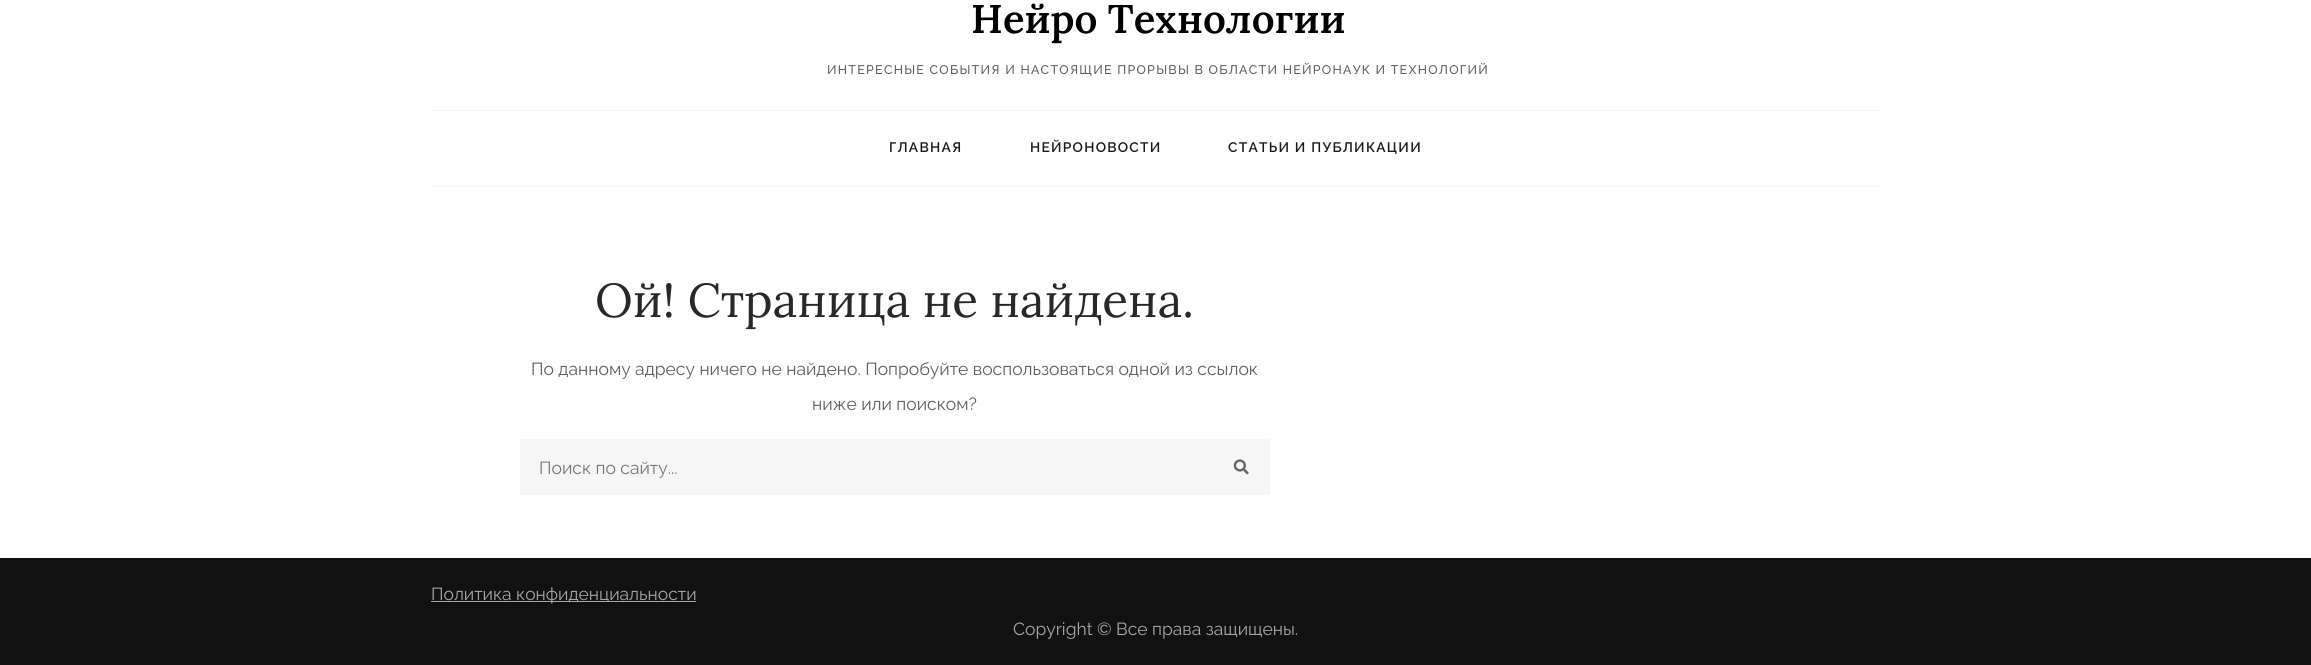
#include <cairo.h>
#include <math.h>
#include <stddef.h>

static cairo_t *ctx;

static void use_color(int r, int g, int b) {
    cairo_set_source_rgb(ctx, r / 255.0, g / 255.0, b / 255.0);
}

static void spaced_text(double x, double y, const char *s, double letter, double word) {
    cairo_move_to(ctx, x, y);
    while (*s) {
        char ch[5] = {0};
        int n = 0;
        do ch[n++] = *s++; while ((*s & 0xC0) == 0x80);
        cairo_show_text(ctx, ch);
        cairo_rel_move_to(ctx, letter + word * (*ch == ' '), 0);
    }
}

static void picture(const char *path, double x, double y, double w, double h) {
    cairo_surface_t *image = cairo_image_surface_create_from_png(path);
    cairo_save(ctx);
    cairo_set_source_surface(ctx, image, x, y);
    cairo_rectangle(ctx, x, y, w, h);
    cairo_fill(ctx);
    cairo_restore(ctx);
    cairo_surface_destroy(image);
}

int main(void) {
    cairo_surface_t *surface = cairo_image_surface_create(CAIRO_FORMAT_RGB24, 2311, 665);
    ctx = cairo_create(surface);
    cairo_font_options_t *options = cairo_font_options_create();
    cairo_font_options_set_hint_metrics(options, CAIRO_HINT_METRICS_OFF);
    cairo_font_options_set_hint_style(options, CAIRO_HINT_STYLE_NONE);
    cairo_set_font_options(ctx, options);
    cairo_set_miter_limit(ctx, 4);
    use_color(255, 255, 255);
    cairo_paint(ctx);
    cairo_select_font_face(ctx, "Lora SemiBold", CAIRO_FONT_SLANT_NORMAL, CAIRO_FONT_WEIGHT_NORMAL);
    cairo_set_font_size(ctx, 40);
    use_color(0, 0, 0);
    cairo_move_to(ctx, 971, 33);
    cairo_show_text(ctx, "Нейро Технологии");
    cairo_select_font_face(ctx, "Raleway Medium", CAIRO_FONT_SLANT_NORMAL, CAIRO_FONT_WEIGHT_NORMAL);
    cairo_set_font_size(ctx, 12.5);
    use_color(94, 94, 94);
    spaced_text(827, 74, "ИНТЕРЕСНЫЕ СОБЫТИЯ И НАСТОЯЩИЕ ПРОРЫВЫ В ОБЛАСТИ НЕЙРОНАУК И ТЕХНОЛОГИЙ", 1.25, 0);
    use_color(245, 245, 245);
    cairo_rectangle(ctx, 431, 110, 1450, 1);
    cairo_fill(ctx);
    cairo_rectangle(ctx, 431, 186, 1450, 1);
    cairo_fill(ctx);
    cairo_select_font_face(ctx, "Raleway SemiBold", CAIRO_FONT_SLANT_NORMAL, CAIRO_FONT_WEIGHT_NORMAL);
    cairo_set_font_size(ctx, 13.75);
    use_color(26, 26, 26);
    spaced_text(889, 152, "ГЛАВНАЯ", 1.25, 0);
    spaced_text(1030, 152, "НЕЙРОНОВОСТИ", 1.25, 0);
    spaced_text(1228, 152, "СТАТЬИ И ПУБЛИКАЦИИ", 1.25, 0);
    cairo_select_font_face(ctx, "Lora", CAIRO_FONT_SLANT_NORMAL, CAIRO_FONT_WEIGHT_NORMAL);
    cairo_set_font_size(ctx, 47.5);
    use_color(40, 40, 40);
    cairo_move_to(ctx, 595, 317);
    cairo_show_text(ctx, "Ой! Страница не найдена.");
    cairo_select_font_face(ctx, "Raleway", CAIRO_FONT_SLANT_NORMAL, CAIRO_FONT_WEIGHT_NORMAL);
    cairo_set_font_size(ctx, 17.5);
    use_color(94, 94, 94);
    cairo_move_to(ctx, 531, 375);
    cairo_show_text(ctx, "По данному адресу ничего не найдено. Попробуйте воспользоваться одной из ссылок");
    cairo_move_to(ctx, 812, 410);
    cairo_show_text(ctx, "ниже или поиском?");
    use_color(246, 246, 246);
    cairo_rectangle(ctx, 520, 439, 750, 56);
    cairo_fill(ctx);
    use_color(117, 117, 117);
    cairo_move_to(ctx, 539, 474);
    cairo_show_text(ctx, "Поиск по сайту...");
    picture("img1.png", 1233, 459, 16, 16);
    use_color(17, 17, 17);
    cairo_rectangle(ctx, 0, 558, 2311, 107);
    cairo_fill(ctx);
    use_color(167, 167, 167);
    cairo_rectangle(ctx, 431, 601, 265, 1);
    cairo_fill(ctx);
    cairo_move_to(ctx, 431, 600);
    cairo_show_text(ctx, "Политика конфиденциальности");
    cairo_move_to(ctx, 1013, 635);
    cairo_show_text(ctx, "Copyright © Все права защищены.");
    cairo_surface_write_to_png(surface, "result.png");
    cairo_font_options_destroy(options);
    cairo_destroy(ctx);
    cairo_surface_destroy(surface);
    return 0;
}
